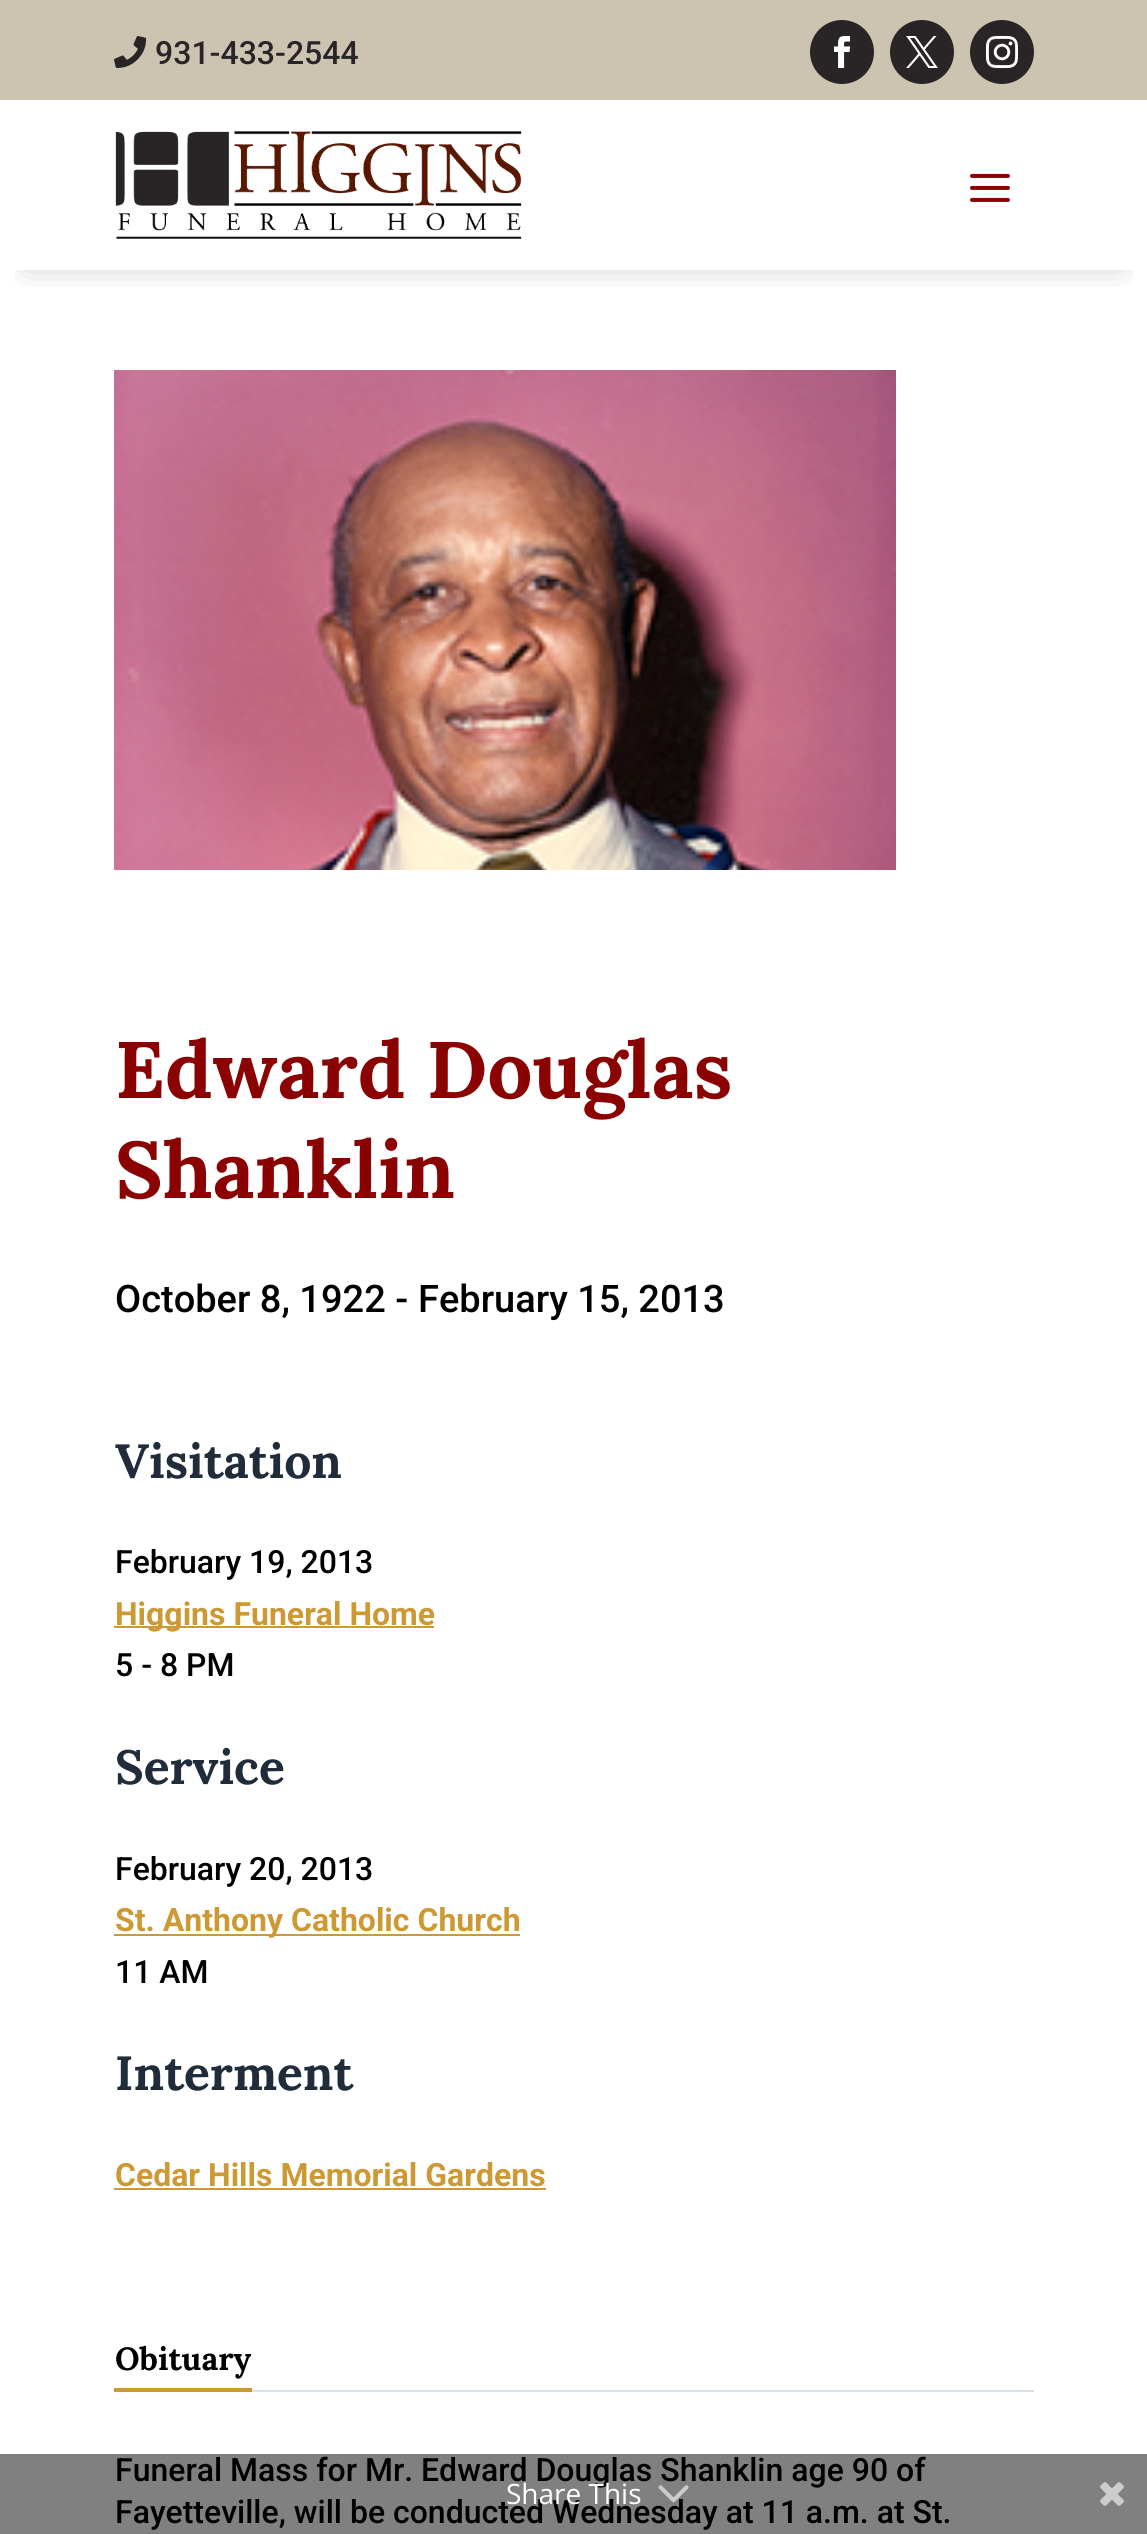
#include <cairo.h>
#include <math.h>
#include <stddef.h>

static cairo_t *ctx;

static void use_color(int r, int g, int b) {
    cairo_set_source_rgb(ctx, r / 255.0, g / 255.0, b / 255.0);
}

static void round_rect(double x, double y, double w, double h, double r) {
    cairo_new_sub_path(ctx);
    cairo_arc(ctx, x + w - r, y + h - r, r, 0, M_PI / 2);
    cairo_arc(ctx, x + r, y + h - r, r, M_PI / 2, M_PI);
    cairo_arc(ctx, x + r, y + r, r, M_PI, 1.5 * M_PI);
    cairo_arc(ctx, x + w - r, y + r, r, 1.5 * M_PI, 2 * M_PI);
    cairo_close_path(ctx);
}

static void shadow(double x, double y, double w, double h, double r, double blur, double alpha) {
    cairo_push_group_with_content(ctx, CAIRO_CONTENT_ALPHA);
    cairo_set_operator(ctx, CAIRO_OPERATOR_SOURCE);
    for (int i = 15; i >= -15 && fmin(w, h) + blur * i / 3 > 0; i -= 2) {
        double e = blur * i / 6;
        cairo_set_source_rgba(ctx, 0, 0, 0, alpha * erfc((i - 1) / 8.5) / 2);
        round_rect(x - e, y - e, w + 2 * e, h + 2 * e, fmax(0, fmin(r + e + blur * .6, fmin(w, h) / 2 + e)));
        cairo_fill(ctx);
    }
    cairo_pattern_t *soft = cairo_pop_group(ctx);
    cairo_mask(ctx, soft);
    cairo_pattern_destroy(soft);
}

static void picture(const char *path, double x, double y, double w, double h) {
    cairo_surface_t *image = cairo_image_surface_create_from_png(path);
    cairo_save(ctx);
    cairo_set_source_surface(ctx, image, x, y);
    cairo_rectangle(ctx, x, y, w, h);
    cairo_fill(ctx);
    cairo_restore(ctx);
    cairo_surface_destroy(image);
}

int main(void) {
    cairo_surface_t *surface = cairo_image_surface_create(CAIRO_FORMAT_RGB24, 1147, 2534);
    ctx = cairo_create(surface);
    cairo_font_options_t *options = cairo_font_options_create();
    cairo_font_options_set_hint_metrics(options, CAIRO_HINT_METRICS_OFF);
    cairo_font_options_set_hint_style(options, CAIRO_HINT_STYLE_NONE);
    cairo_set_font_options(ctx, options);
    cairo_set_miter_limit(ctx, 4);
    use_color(255, 255, 255);
    cairo_paint(ctx);
    use_color(128, 128, 128);
    cairo_rectangle(ctx, 0, 2454, 1147, 80);
    cairo_fill(ctx);
    use_color(204, 195, 177);
    cairo_rectangle(ctx, 0, 0, 1147, 100);
    cairo_fill(ctx);
    picture("img1.png", 114, 36, 33, 32);
    cairo_select_font_face(ctx, "Roboto Medium", CAIRO_FONT_SLANT_NORMAL, CAIRO_FONT_WEIGHT_NORMAL);
    cairo_set_font_size(ctx, 32);
    use_color(41, 37, 38);
    cairo_move_to(ctx, 155, 64);
    cairo_show_text(ctx, "931-433-2544");
    cairo_new_path(ctx);
    cairo_arc(ctx, 842, 52, 32, 0, 2 * M_PI);
    cairo_fill(ctx);
    picture("img2.png", 834, 36, 17, 32);
    cairo_arc(ctx, 922, 52, 32, 0, 2 * M_PI);
    cairo_fill(ctx);
    picture("img3.png", 906, 36, 32, 32);
    cairo_arc(ctx, 1002, 52, 32, 0, 2 * M_PI);
    cairo_fill(ctx);
    picture("img4.png", 986, 36, 32, 32);
    cairo_save(ctx);
    cairo_rectangle(ctx, 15, 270, 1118, 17);
    cairo_clip(ctx);
    use_color(0, 0, 0);
    shadow(28, 146, 1092, 114, 0, 18, 0.3);
    cairo_restore(ctx);
    picture("img5.png", 115, 131, 407, 108);
    picture("img6.png", 970, 173, 40, 29);
    picture("img7.png", 114, 370, 782, 500);
    cairo_select_font_face(ctx, "Lora", CAIRO_FONT_SLANT_NORMAL, CAIRO_FONT_WEIGHT_BOLD);
    cairo_set_font_size(ctx, 80);
    use_color(139, 2, 2);
    cairo_move_to(ctx, 115, 1098);
    cairo_show_text(ctx, "Edward Douglas");
    cairo_move_to(ctx, 115, 1198);
    cairo_show_text(ctx, "Shanklin");
    cairo_select_font_face(ctx, "Roboto Medium", CAIRO_FONT_SLANT_NORMAL, CAIRO_FONT_WEIGHT_NORMAL);
    cairo_set_font_size(ctx, 38);
    use_color(0, 0, 0);
    cairo_move_to(ctx, 115, 1312);
    cairo_show_text(ctx, "October 8, 1922 -");
    cairo_move_to(ctx, 418, 1312);
    cairo_show_text(ctx, "February 15, 2013");
    cairo_select_font_face(ctx, "Lora", CAIRO_FONT_SLANT_NORMAL, CAIRO_FONT_WEIGHT_BOLD);
    cairo_set_font_size(ctx, 48);
    use_color(32, 44, 57);
    cairo_move_to(ctx, 115, 1478);
    cairo_show_text(ctx, "Visitation");
    cairo_select_font_face(ctx, "Roboto Medium", CAIRO_FONT_SLANT_NORMAL, CAIRO_FONT_WEIGHT_NORMAL);
    cairo_set_font_size(ctx, 32);
    use_color(0, 0, 0);
    cairo_move_to(ctx, 115, 1573);
    cairo_show_text(ctx, "February 19, 2013");
    use_color(204, 153, 52);
    cairo_rectangle(ctx, 114, 1626, 320, 2);
    cairo_fill(ctx);
    cairo_select_font_face(ctx, "Roboto", CAIRO_FONT_SLANT_NORMAL, CAIRO_FONT_WEIGHT_BOLD);
    cairo_move_to(ctx, 115, 1625);
    cairo_show_text(ctx, "Higgins Funeral Home");
    cairo_select_font_face(ctx, "Roboto Medium", CAIRO_FONT_SLANT_NORMAL, CAIRO_FONT_WEIGHT_NORMAL);
    use_color(0, 0, 0);
    cairo_move_to(ctx, 115, 1676);
    cairo_show_text(ctx, "5 - 8 PM");
    cairo_select_font_face(ctx, "Lora", CAIRO_FONT_SLANT_NORMAL, CAIRO_FONT_WEIGHT_BOLD);
    cairo_set_font_size(ctx, 48);
    use_color(32, 44, 57);
    cairo_move_to(ctx, 115, 1784);
    cairo_show_text(ctx, "Service");
    cairo_select_font_face(ctx, "Roboto Medium", CAIRO_FONT_SLANT_NORMAL, CAIRO_FONT_WEIGHT_NORMAL);
    cairo_set_font_size(ctx, 32);
    use_color(0, 0, 0);
    cairo_move_to(ctx, 115, 1880);
    cairo_show_text(ctx, "February 20, 2013");
    use_color(204, 153, 52);
    cairo_rectangle(ctx, 114, 1934, 406, 2);
    cairo_fill(ctx);
    cairo_select_font_face(ctx, "Roboto", CAIRO_FONT_SLANT_NORMAL, CAIRO_FONT_WEIGHT_BOLD);
    cairo_move_to(ctx, 115, 1931);
    cairo_show_text(ctx, "St. Anthony Catholic Church");
    cairo_select_font_face(ctx, "Roboto Medium", CAIRO_FONT_SLANT_NORMAL, CAIRO_FONT_WEIGHT_NORMAL);
    use_color(0, 0, 0);
    cairo_move_to(ctx, 115, 1983);
    cairo_show_text(ctx, "11 AM");
    cairo_select_font_face(ctx, "Lora", CAIRO_FONT_SLANT_NORMAL, CAIRO_FONT_WEIGHT_BOLD);
    cairo_set_font_size(ctx, 48);
    use_color(32, 44, 57);
    cairo_move_to(ctx, 115, 2090);
    cairo_show_text(ctx, "Interment");
    cairo_select_font_face(ctx, "Roboto", CAIRO_FONT_SLANT_NORMAL, CAIRO_FONT_WEIGHT_BOLD);
    cairo_set_font_size(ctx, 32);
    use_color(204, 153, 52);
    cairo_move_to(ctx, 115, 2186);
    cairo_show_text(ctx, "Cedar Hills Memorial Gardens");
    cairo_rectangle(ctx, 114, 2188, 432, 2);
    cairo_fill(ctx);
    use_color(217, 224, 230);
    cairo_rectangle(ctx, 252, 2390, 782, 2);
    cairo_fill(ctx);
    cairo_select_font_face(ctx, "Lora", CAIRO_FONT_SLANT_NORMAL, CAIRO_FONT_WEIGHT_BOLD);
    use_color(0, 0, 0);
    cairo_move_to(ctx, 115, 2370);
    cairo_show_text(ctx, "Obituary");
    use_color(204, 153, 51);
    cairo_rectangle(ctx, 114, 2388, 138, 4);
    cairo_fill(ctx);
    cairo_select_font_face(ctx, "Roboto Medium", CAIRO_FONT_SLANT_NORMAL, CAIRO_FONT_WEIGHT_NORMAL);
    use_color(0, 0, 0);
    cairo_move_to(ctx, 115, 2481);
    cairo_show_text(ctx, "Funeral Mass for Mr. Edward Douglas Shanklin age 90 of");
    cairo_move_to(ctx, 115, 2523);
    cairo_show_text(ctx, "Fayetteville, will be conducted Wednesday at 11 a.m. at St.");
    cairo_select_font_face(ctx, "Open Sans", CAIRO_FONT_SLANT_NORMAL, CAIRO_FONT_WEIGHT_NORMAL);
    cairo_set_font_size(ctx, 28);
    use_color(255, 255, 255);
    cairo_move_to(ctx, 506, 2504);
    cairo_show_text(ctx, "Share This");
    picture("img8.png", 658, 2485, 31, 18);
    picture("img9.png", 1100, 2482, 24, 24);
    cairo_surface_write_to_png(surface, "result.png");
    cairo_font_options_destroy(options);
    cairo_destroy(ctx);
    cairo_surface_destroy(surface);
    return 0;
}
